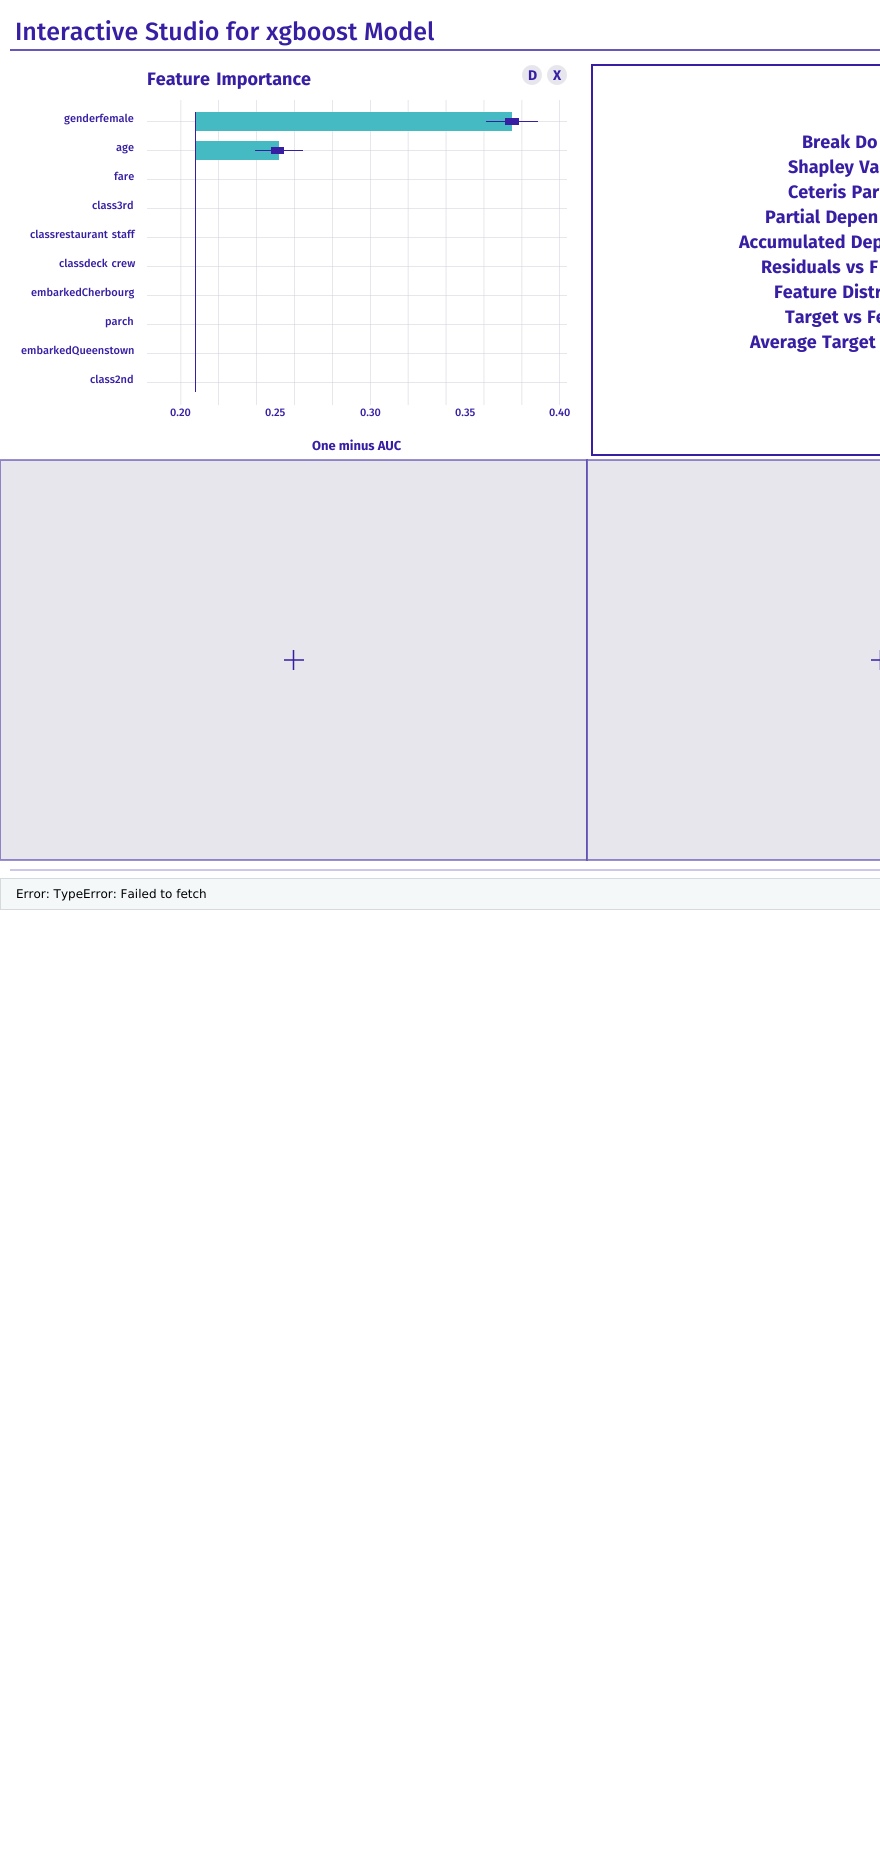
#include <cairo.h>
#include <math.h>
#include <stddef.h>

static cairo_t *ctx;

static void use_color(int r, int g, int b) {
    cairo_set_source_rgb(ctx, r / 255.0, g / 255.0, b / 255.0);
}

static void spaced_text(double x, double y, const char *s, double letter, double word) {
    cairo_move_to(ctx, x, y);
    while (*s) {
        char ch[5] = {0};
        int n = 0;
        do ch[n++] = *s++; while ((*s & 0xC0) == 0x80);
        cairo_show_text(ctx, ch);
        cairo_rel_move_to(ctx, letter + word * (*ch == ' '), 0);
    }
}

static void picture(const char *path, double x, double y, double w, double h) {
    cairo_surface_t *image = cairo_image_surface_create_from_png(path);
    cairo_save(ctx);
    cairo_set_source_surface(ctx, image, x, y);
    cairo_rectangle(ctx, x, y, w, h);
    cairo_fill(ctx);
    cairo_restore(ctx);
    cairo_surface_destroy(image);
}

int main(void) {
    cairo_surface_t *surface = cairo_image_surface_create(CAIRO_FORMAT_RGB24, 880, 1862);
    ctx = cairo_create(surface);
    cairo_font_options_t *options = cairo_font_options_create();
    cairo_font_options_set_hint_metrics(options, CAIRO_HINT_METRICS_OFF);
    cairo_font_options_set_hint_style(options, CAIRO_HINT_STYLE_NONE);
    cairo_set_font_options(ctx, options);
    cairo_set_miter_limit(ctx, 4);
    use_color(255, 255, 255);
    cairo_paint(ctx);
    cairo_select_font_face(ctx, "Fira Sans Medium", CAIRO_FONT_SLANT_NORMAL, CAIRO_FONT_WEIGHT_NORMAL);
    cairo_set_font_size(ctx, 25);
    use_color(55, 30, 163);
    spaced_text(15, 40, "Interactive Studio for xgboost Model", 0, 0.5);
    cairo_select_font_face(ctx, "Fira Sans", CAIRO_FONT_SLANT_NORMAL, CAIRO_FONT_WEIGHT_BOLD);
    cairo_set_font_size(ctx, 13);
    cairo_move_to(ctx, 312, 450);
    cairo_show_text(ctx, "One minus AUC");
    picture("img1.png", 0, 49, 880, 822);
    cairo_set_font_size(ctx, 18);
    spaced_text(147, 85, "Feature Importance", 0, 2);
    cairo_set_font_size(ctx, 14);
    cairo_move_to(ctx, 528, 80);
    cairo_show_text(ctx, "D");
    cairo_move_to(ctx, 553, 80);
    cairo_show_text(ctx, "X");
    cairo_select_font_face(ctx, "Fira Sans Medium", CAIRO_FONT_SLANT_NORMAL, CAIRO_FONT_WEIGHT_NORMAL);
    cairo_set_font_size(ctx, 11);
    cairo_move_to(ctx, 64, 122);
    cairo_show_text(ctx, "genderfemale");
    cairo_move_to(ctx, 116, 151);
    cairo_show_text(ctx, "age");
    cairo_select_font_face(ctx, "Fira Sans", CAIRO_FONT_SLANT_NORMAL, CAIRO_FONT_WEIGHT_BOLD);
    cairo_set_font_size(ctx, 18);
    spaced_text(802, 148, "Break Do", 0, 1);
    cairo_select_font_face(ctx, "Fira Sans Medium", CAIRO_FONT_SLANT_NORMAL, CAIRO_FONT_WEIGHT_NORMAL);
    cairo_set_font_size(ctx, 11);
    cairo_move_to(ctx, 114, 180);
    cairo_show_text(ctx, "fare");
    cairo_select_font_face(ctx, "Fira Sans", CAIRO_FONT_SLANT_NORMAL, CAIRO_FONT_WEIGHT_BOLD);
    cairo_set_font_size(ctx, 18);
    spaced_text(788, 173, "Shapley Va", 0, 1);
    spaced_text(788, 198, "Ceteris Par", 0, 1);
    cairo_select_font_face(ctx, "Fira Sans Medium", CAIRO_FONT_SLANT_NORMAL, CAIRO_FONT_WEIGHT_NORMAL);
    cairo_set_font_size(ctx, 11);
    cairo_move_to(ctx, 92, 209);
    cairo_show_text(ctx, "class3rd");
    cairo_select_font_face(ctx, "Fira Sans", CAIRO_FONT_SLANT_NORMAL, CAIRO_FONT_WEIGHT_BOLD);
    cairo_set_font_size(ctx, 18);
    spaced_text(765, 223, "Partial Depen", 0, 1);
    cairo_select_font_face(ctx, "Fira Sans Medium", CAIRO_FONT_SLANT_NORMAL, CAIRO_FONT_WEIGHT_NORMAL);
    cairo_set_font_size(ctx, 11);
    spaced_text(30, 238, "classrestaurant staff", 0, 1);
    cairo_select_font_face(ctx, "Fira Sans", CAIRO_FONT_SLANT_NORMAL, CAIRO_FONT_WEIGHT_BOLD);
    cairo_set_font_size(ctx, 18);
    spaced_text(739, 248, "Accumulated Dep", 0, 1);
    cairo_select_font_face(ctx, "Fira Sans Medium", CAIRO_FONT_SLANT_NORMAL, CAIRO_FONT_WEIGHT_NORMAL);
    cairo_set_font_size(ctx, 11);
    spaced_text(59, 267, "classdeck crew", 0, 1);
    cairo_select_font_face(ctx, "Fira Sans", CAIRO_FONT_SLANT_NORMAL, CAIRO_FONT_WEIGHT_BOLD);
    cairo_set_font_size(ctx, 18);
    spaced_text(761, 273, "Residuals vs F", 0, 1);
    cairo_select_font_face(ctx, "Fira Sans Medium", CAIRO_FONT_SLANT_NORMAL, CAIRO_FONT_WEIGHT_NORMAL);
    cairo_set_font_size(ctx, 11);
    cairo_move_to(ctx, 31, 296);
    cairo_show_text(ctx, "embarkedCherbourg");
    cairo_select_font_face(ctx, "Fira Sans", CAIRO_FONT_SLANT_NORMAL, CAIRO_FONT_WEIGHT_BOLD);
    cairo_set_font_size(ctx, 18);
    spaced_text(774, 298, "Feature Distr", 0, 1);
    cairo_select_font_face(ctx, "Fira Sans Medium", CAIRO_FONT_SLANT_NORMAL, CAIRO_FONT_WEIGHT_NORMAL);
    cairo_set_font_size(ctx, 11);
    cairo_move_to(ctx, 105, 325);
    cairo_show_text(ctx, "parch");
    cairo_select_font_face(ctx, "Fira Sans", CAIRO_FONT_SLANT_NORMAL, CAIRO_FONT_WEIGHT_BOLD);
    cairo_set_font_size(ctx, 18);
    spaced_text(785, 323, "Target vs Fe", 0, 1);
    cairo_select_font_face(ctx, "Fira Sans Medium", CAIRO_FONT_SLANT_NORMAL, CAIRO_FONT_WEIGHT_NORMAL);
    cairo_set_font_size(ctx, 11);
    cairo_move_to(ctx, 21, 354);
    cairo_show_text(ctx, "embarkedQueenstown");
    cairo_select_font_face(ctx, "Fira Sans", CAIRO_FONT_SLANT_NORMAL, CAIRO_FONT_WEIGHT_BOLD);
    cairo_set_font_size(ctx, 18);
    spaced_text(750, 348, "Average Target", 0, 1);
    cairo_select_font_face(ctx, "Fira Sans Medium", CAIRO_FONT_SLANT_NORMAL, CAIRO_FONT_WEIGHT_NORMAL);
    cairo_set_font_size(ctx, 11);
    cairo_move_to(ctx, 90, 383);
    cairo_show_text(ctx, "class2nd");
    cairo_move_to(ctx, 170, 416);
    cairo_show_text(ctx, "0.20");
    cairo_move_to(ctx, 265, 416);
    cairo_show_text(ctx, "0.25");
    cairo_move_to(ctx, 360, 416);
    cairo_show_text(ctx, "0.30");
    cairo_move_to(ctx, 455, 416);
    cairo_show_text(ctx, "0.35");
    cairo_move_to(ctx, 549, 416);
    cairo_show_text(ctx, "0.40");
    use_color(244, 248, 249);
    cairo_rectangle(ctx, 0.5, 878.5, 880, 31);
    cairo_fill_preserve(ctx);
    use_color(214, 218, 220);
    cairo_set_line_width(ctx, 1);
    cairo_stroke(ctx);
    cairo_select_font_face(ctx, "DejaVu Sans", CAIRO_FONT_SLANT_NORMAL, CAIRO_FONT_WEIGHT_NORMAL);
    cairo_set_font_size(ctx, 12);
    use_color(0, 0, 0);
    cairo_move_to(ctx, 16, 898);
    cairo_show_text(ctx, "Error: TypeError: Failed to fetch");
    cairo_surface_write_to_png(surface, "result.png");
    cairo_font_options_destroy(options);
    cairo_destroy(ctx);
    cairo_surface_destroy(surface);
    return 0;
}
